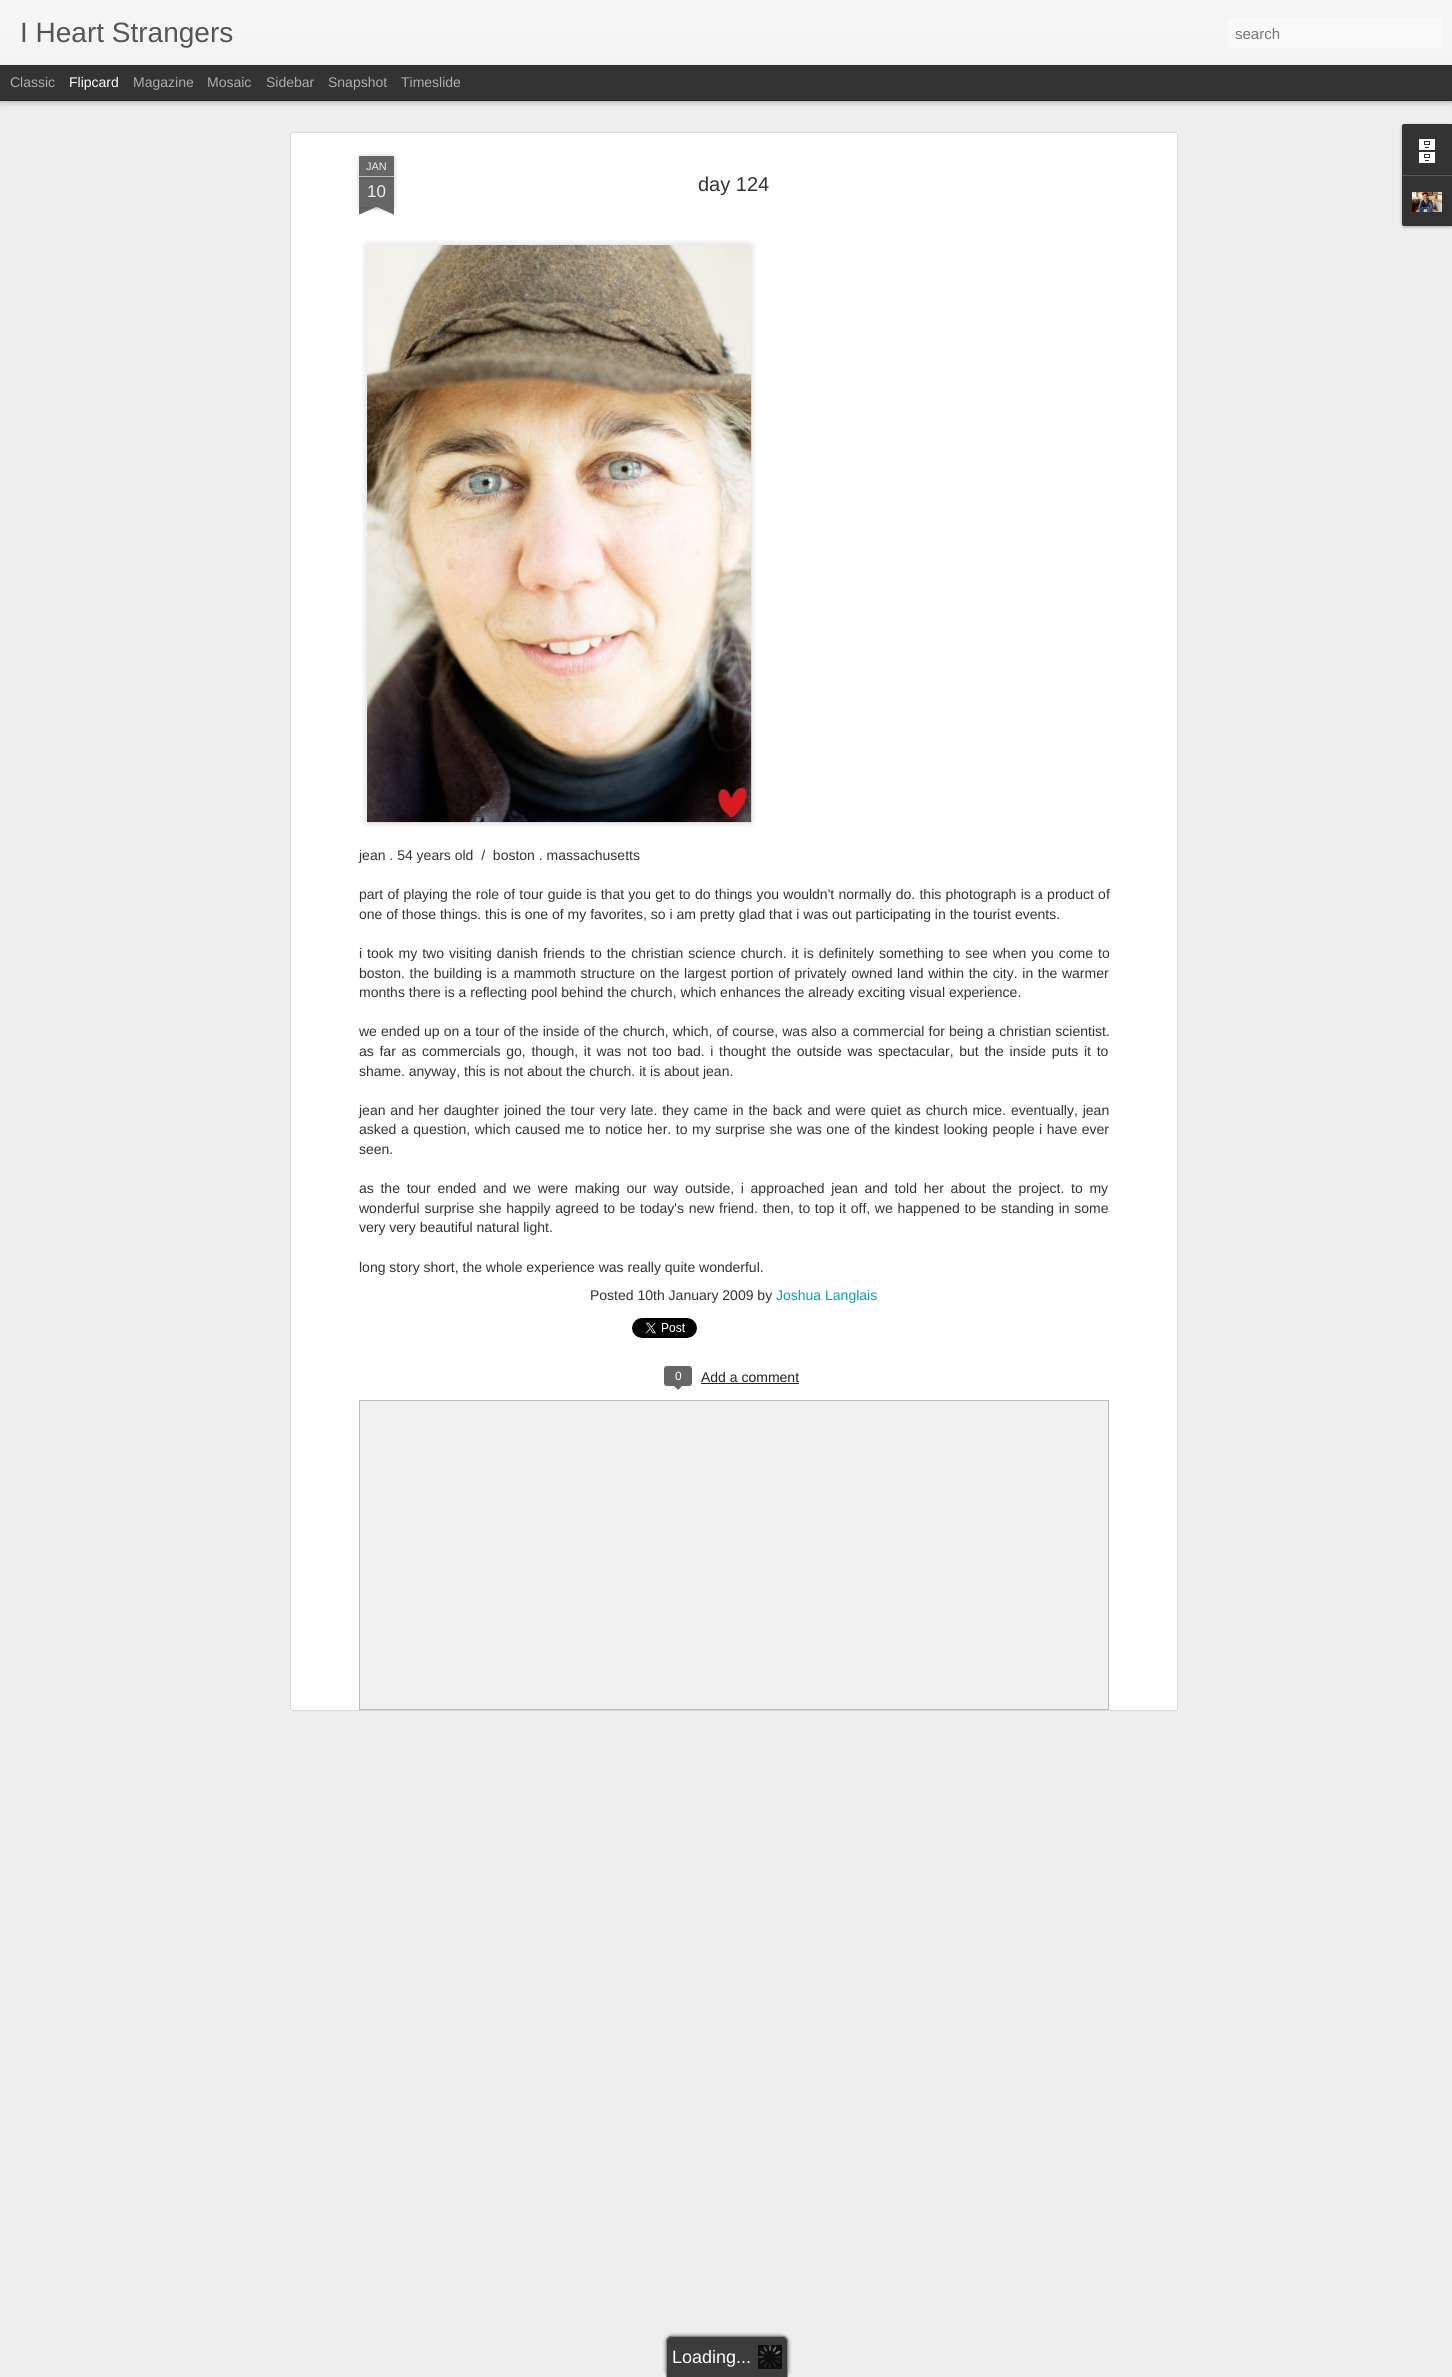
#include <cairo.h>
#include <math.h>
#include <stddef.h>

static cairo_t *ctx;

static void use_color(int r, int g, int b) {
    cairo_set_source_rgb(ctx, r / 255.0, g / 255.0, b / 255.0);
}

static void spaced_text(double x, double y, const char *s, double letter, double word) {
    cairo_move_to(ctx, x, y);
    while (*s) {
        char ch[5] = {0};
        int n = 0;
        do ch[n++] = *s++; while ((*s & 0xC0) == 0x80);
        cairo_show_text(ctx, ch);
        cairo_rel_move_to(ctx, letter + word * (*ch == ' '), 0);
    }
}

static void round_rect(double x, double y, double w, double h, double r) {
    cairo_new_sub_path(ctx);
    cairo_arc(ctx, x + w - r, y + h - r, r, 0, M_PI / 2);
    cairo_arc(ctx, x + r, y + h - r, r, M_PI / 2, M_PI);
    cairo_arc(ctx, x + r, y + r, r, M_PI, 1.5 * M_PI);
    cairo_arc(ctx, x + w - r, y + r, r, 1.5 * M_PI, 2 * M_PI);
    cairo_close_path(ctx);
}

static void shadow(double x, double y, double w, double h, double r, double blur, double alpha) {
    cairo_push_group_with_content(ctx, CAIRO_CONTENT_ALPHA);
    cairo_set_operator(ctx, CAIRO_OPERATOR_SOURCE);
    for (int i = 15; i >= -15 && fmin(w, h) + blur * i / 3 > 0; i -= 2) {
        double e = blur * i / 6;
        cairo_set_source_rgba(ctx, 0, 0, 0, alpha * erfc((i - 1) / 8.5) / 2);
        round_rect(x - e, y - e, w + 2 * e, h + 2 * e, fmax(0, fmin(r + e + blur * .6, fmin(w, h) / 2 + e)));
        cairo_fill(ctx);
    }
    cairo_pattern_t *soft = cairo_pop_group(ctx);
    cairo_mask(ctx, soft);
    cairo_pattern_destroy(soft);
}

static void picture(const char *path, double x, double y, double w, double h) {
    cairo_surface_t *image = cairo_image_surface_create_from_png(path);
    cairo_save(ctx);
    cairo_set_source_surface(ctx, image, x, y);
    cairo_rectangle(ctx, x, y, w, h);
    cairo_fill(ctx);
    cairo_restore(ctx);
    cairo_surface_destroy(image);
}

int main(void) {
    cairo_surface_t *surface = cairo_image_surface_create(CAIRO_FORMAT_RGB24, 1452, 2377);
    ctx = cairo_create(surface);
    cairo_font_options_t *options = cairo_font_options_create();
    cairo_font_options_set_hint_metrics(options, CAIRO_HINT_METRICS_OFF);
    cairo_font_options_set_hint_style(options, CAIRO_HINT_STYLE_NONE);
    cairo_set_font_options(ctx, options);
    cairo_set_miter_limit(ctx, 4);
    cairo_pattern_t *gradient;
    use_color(51, 51, 51);
    cairo_paint(ctx);
    use_color(238, 238, 238);
    cairo_rectangle(ctx, 0, 101, 1452, 2276);
    cairo_fill(ctx);
    use_color(0, 0, 0);
    shadow(0, 65, 1452, 35, 0, 4, 0.5);
    use_color(51, 51, 51);
    cairo_rectangle(ctx, 0, 65, 1452, 35);
    cairo_fill(ctx);
    use_color(0, 0, 0);
    shadow(0, 0, 1452, 65, 0, 2.5, 0.3);
    gradient = cairo_pattern_create_linear(0, 0, 0, 65);
    cairo_pattern_add_color_stop_rgba(gradient, 0, 0.969, 0.969, 0.969, 1);
    cairo_pattern_add_color_stop_rgba(gradient, 1, 0.957, 0.957, 0.957, 1);
    cairo_set_source(ctx, gradient);
    cairo_pattern_destroy(gradient);
    cairo_rectangle(ctx, 0, 0, 1452, 65);
    cairo_fill(ctx);
    cairo_select_font_face(ctx, "Liberation Sans", CAIRO_FONT_SLANT_NORMAL, CAIRO_FONT_WEIGHT_NORMAL);
    cairo_set_font_size(ctx, 28);
    use_color(85, 85, 85);
    cairo_move_to(ctx, 20, 42);
    cairo_show_text(ctx, "I Heart Strangers");
    use_color(250, 250, 250);
    round_rect(1228, 18, 214, 30, 3);
    cairo_fill(ctx);
    cairo_set_font_size(ctx, 15);
    use_color(117, 117, 117);
    cairo_move_to(ctx, 1235, 39);
    cairo_show_text(ctx, "search");
    cairo_set_font_size(ctx, 14);
    use_color(173, 173, 173);
    cairo_move_to(ctx, 10, 87);
    cairo_show_text(ctx, "Classic");
    use_color(255, 255, 255);
    cairo_move_to(ctx, 69, 87);
    cairo_show_text(ctx, "Flipcard");
    use_color(173, 173, 173);
    cairo_move_to(ctx, 133, 87);
    cairo_show_text(ctx, "Magazine");
    cairo_move_to(ctx, 207, 87);
    cairo_show_text(ctx, "Mosaic");
    cairo_move_to(ctx, 266, 87);
    cairo_show_text(ctx, "Sidebar");
    cairo_move_to(ctx, 328, 87);
    cairo_show_text(ctx, "Snapshot");
    cairo_move_to(ctx, 401, 87);
    cairo_show_text(ctx, "Timeslide");
    use_color(255, 255, 255);
    cairo_rectangle(ctx, 289, 131, 890, 1581);
    cairo_fill(ctx);
    picture("img1.png", 289, 131, 890, 1581);
    use_color(0, 0, 0);
    shadow(359, 177, 35, 30, 0, 2.5, 0.2);
    use_color(102, 102, 102);
    cairo_rectangle(ctx, 359, 177, 35, 30);
    cairo_fill(ctx);
    use_color(0, 0, 0);
    shadow(359, 156, 35, 21, 1, 2.5, 0.2);
    use_color(102, 102, 102);
    cairo_new_path(ctx);
    cairo_move_to(ctx, 360, 156);
    cairo_line_to(ctx, 393, 156);
    cairo_curve_to(ctx, 393.5, 156, 394, 156.5, 394, 157);
    cairo_line_to(ctx, 394, 177);
    cairo_line_to(ctx, 359, 177);
    cairo_line_to(ctx, 359, 157);
    cairo_curve_to(ctx, 359, 156.5, 359.5, 156, 360, 156);
    cairo_close_path(ctx);
    cairo_fill(ctx);
    use_color(194, 194, 194);
    cairo_rectangle(ctx, 359, 176, 35, 1);
    cairo_fill(ctx);
    cairo_set_font_size(ctx, 11);
    use_color(238, 238, 238);
    cairo_move_to(ctx, 366, 170);
    cairo_show_text(ctx, "JAN");
    cairo_set_font_size(ctx, 17);
    cairo_move_to(ctx, 367, 197);
    cairo_show_text(ctx, "10");
    cairo_save(ctx);
    cairo_rectangle(ctx, 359, 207, 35, 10);
    cairo_clip(ctx);
    use_color(0, 0, 0);
    shadow(350, 197, 50, 10, 0, 2.5, 0.2);
    cairo_restore(ctx);
    cairo_save(ctx);
    cairo_rectangle(ctx, 359, 207, 35, 10);
    cairo_clip(ctx);
    use_color(102, 102, 102);
    cairo_new_path(ctx);
    cairo_move_to(ctx, 350, 208);
    cairo_line_to(ctx, 396, 187);
    cairo_line_to(ctx, 400, 196);
    cairo_line_to(ctx, 354, 217);
    cairo_close_path(ctx);
    cairo_fill(ctx);
    cairo_restore(ctx);
    cairo_save(ctx);
    cairo_rectangle(ctx, 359, 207, 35, 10);
    cairo_clip(ctx);
    use_color(0, 0, 0);
    shadow(353, 197, 50, 10, 0, 2.5, 0.2);
    cairo_restore(ctx);
    cairo_save(ctx);
    cairo_rectangle(ctx, 359, 207, 35, 10);
    cairo_clip(ctx);
    use_color(102, 102, 102);
    cairo_new_path(ctx);
    cairo_move_to(ctx, 357, 187);
    cairo_line_to(ctx, 403, 208);
    cairo_line_to(ctx, 399, 217);
    cairo_line_to(ctx, 353, 196);
    cairo_close_path(ctx);
    cairo_fill(ctx);
    cairo_restore(ctx);
    cairo_set_font_size(ctx, 20);
    use_color(51, 51, 51);
    cairo_move_to(ctx, 698, 191);
    cairo_show_text(ctx, "day 124");
    picture("img2.png", 362, 240, 394, 587);
    picture("img3.png", 367, 245, 385, 578);
    cairo_set_font_size(ctx, 14);
    cairo_move_to(ctx, 359, 860);
    cairo_show_text(ctx, "jean . 54 years old  /  boston . massachusetts");
    spaced_text(359, 899, "part of playing the role of tour guide is that you get to do things you wouldn't normally do. this photograph is a product of", 0, 0.4);
    cairo_move_to(ctx, 359, 919);
    cairo_show_text(ctx, "one of those things. this is one of my favorites, so i am pretty glad that i was out participating in the tourist events.");
    spaced_text(359, 958, "i took my two visiting danish friends to the christian science church. it is definitely something to see when you come to", 0, 1.1);
    spaced_text(359, 978, "boston. the building is a mammoth structure on the largest portion of privately owned land within the city. in the warmer", 0, 0.75);
    cairo_move_to(ctx, 359, 997);
    cairo_show_text(ctx, "months there is a reflecting pool behind the church, which enhances the already exciting visual experience.");
    spaced_text(359, 1036, "we ended up on a tour of the inside of the church, which, of course, was also a commercial for being a christian scientist.", 0, 0.2);
    spaced_text(359, 1056, "as far as commercials go, though, it was not too bad. i thought the outside was spectacular, but the inside puts it to", 0, 1.8);
    cairo_move_to(ctx, 359, 1076);
    cairo_show_text(ctx, "shame. anyway, this is not about the church. it is about jean.");
    spaced_text(359, 1115, "jean and her daughter joined the tour very late. they came in the back and were quiet as church mice. eventually, jean", 0, 1);
    spaced_text(359, 1134, "asked a question, which caused me to notice her. to my surprise she was one of the kindest looking people i have ever", 0, 0.7);
    cairo_move_to(ctx, 359, 1154);
    cairo_show_text(ctx, "seen.");
    spaced_text(359, 1193, "as the tour ended and we were making our way outside, i approached jean and told her about the project. to my", 0, 2.8);
    spaced_text(359, 1213, "wonderful surprise she happily agreed to be today's new friend. then, to top it off, we happened to be standing in some", 0, 0.8);
    cairo_move_to(ctx, 359, 1232);
    cairo_show_text(ctx, "very very beautiful natural light.");
    cairo_move_to(ctx, 359, 1272);
    cairo_show_text(ctx, "long story short, the whole experience was really quite wonderful.");
    cairo_move_to(ctx, 590, 1300);
    cairo_show_text(ctx, "Posted 10th January 2009 by");
    use_color(0, 158, 184);
    cairo_move_to(ctx, 776, 1300);
    cairo_show_text(ctx, "Joshua Langlais");
    picture("img4.png", 632, 1318, 65, 20);
    use_color(102, 102, 102);
    round_rect(664.5, 1366.5, 27, 19, 2.5);
    cairo_fill_preserve(ctx);
    cairo_set_line_width(ctx, 1);
    cairo_stroke(ctx);
    cairo_set_font_size(ctx, 12);
    use_color(255, 255, 255);
    cairo_move_to(ctx, 675, 1380);
    cairo_show_text(ctx, "0");
    use_color(102, 102, 102);
    cairo_new_path(ctx);
    cairo_move_to(ctx, 673, 1385);
    cairo_line_to(ctx, 683, 1385);
    cairo_line_to(ctx, 678, 1390);
    cairo_close_path(ctx);
    cairo_fill(ctx);
    cairo_set_font_size(ctx, 14);
    use_color(34, 34, 34);
    cairo_move_to(ctx, 701, 1382);
    cairo_show_text(ctx, "Add a comment");
    cairo_rectangle(ctx, 701, 1383, 98, 1);
    cairo_fill(ctx);
    use_color(241, 241, 241);
    cairo_rectangle(ctx, 359.5, 1400.5, 749, 309);
    cairo_fill_preserve(ctx);
    use_color(187, 187, 187);
    cairo_stroke(ctx);
    use_color(0, 0, 0);
    shadow(1402, 125, 50, 102, 2, 1.5, 0.3);
    use_color(51, 51, 51);
    cairo_new_path(ctx);
    cairo_move_to(ctx, 1404, 124);
    cairo_line_to(ctx, 1452, 124);
    cairo_line_to(ctx, 1452, 175);
    cairo_line_to(ctx, 1402, 175);
    cairo_line_to(ctx, 1402, 126);
    cairo_curve_to(ctx, 1402, 125, 1403, 124, 1404, 124);
    cairo_close_path(ctx);
    cairo_fill(ctx);
    picture("img5.png", 1419, 139, 16, 24);
    cairo_new_path(ctx);
    cairo_move_to(ctx, 1402, 175);
    cairo_line_to(ctx, 1452, 175);
    cairo_line_to(ctx, 1452, 226);
    cairo_line_to(ctx, 1404, 226);
    cairo_curve_to(ctx, 1403, 226, 1402, 225, 1402, 224);
    cairo_close_path(ctx);
    cairo_fill(ctx);
    use_color(88, 88, 88);
    cairo_rectangle(ctx, 1402, 175, 50, 1);
    cairo_fill(ctx);
    picture("img6.png", 1412, 192, 30, 20);
    use_color(98, 98, 98);
    shadow(666, 2336, 122, 41, 6, 2, 1);
    use_color(60, 60, 60);
    cairo_new_path(ctx);
    cairo_move_to(ctx, 672, 2336);
    cairo_line_to(ctx, 782, 2336);
    cairo_curve_to(ctx, 785.5, 2336, 788, 2338.5, 788, 2342);
    cairo_line_to(ctx, 788, 2377);
    cairo_line_to(ctx, 666, 2377);
    cairo_line_to(ctx, 666, 2342);
    cairo_curve_to(ctx, 666, 2338.5, 668.5, 2336, 672, 2336);
    cairo_close_path(ctx);
    cairo_fill(ctx);
    use_color(136, 136, 136);
    cairo_set_fill_rule(ctx, CAIRO_FILL_RULE_EVEN_ODD);
    cairo_new_path(ctx);
    cairo_move_to(ctx, 672, 2336);
    cairo_line_to(ctx, 782, 2336);
    cairo_curve_to(ctx, 785, 2336, 788, 2339, 788, 2342);
    cairo_line_to(ctx, 788, 2377);
    cairo_line_to(ctx, 666, 2377);
    cairo_line_to(ctx, 666, 2342);
    cairo_curve_to(ctx, 666, 2339, 669, 2336, 672, 2336);
    cairo_close_path(ctx);
    cairo_move_to(ctx, 672, 2337);
    cairo_line_to(ctx, 782, 2337);
    cairo_curve_to(ctx, 785, 2337, 787, 2339, 787, 2342);
    cairo_line_to(ctx, 787, 2377);
    cairo_line_to(ctx, 667, 2377);
    cairo_line_to(ctx, 667, 2342);
    cairo_curve_to(ctx, 667, 2339, 669, 2337, 672, 2337);
    cairo_close_path(ctx);
    cairo_fill(ctx);
    picture("img7.png", 758, 2345, 24, 24);
    cairo_set_font_size(ctx, 18);
    use_color(255, 255, 255);
    cairo_move_to(ctx, 672, 2363);
    cairo_show_text(ctx, "Loading...");
    cairo_surface_write_to_png(surface, "result.png");
    cairo_font_options_destroy(options);
    cairo_destroy(ctx);
    cairo_surface_destroy(surface);
    return 0;
}
